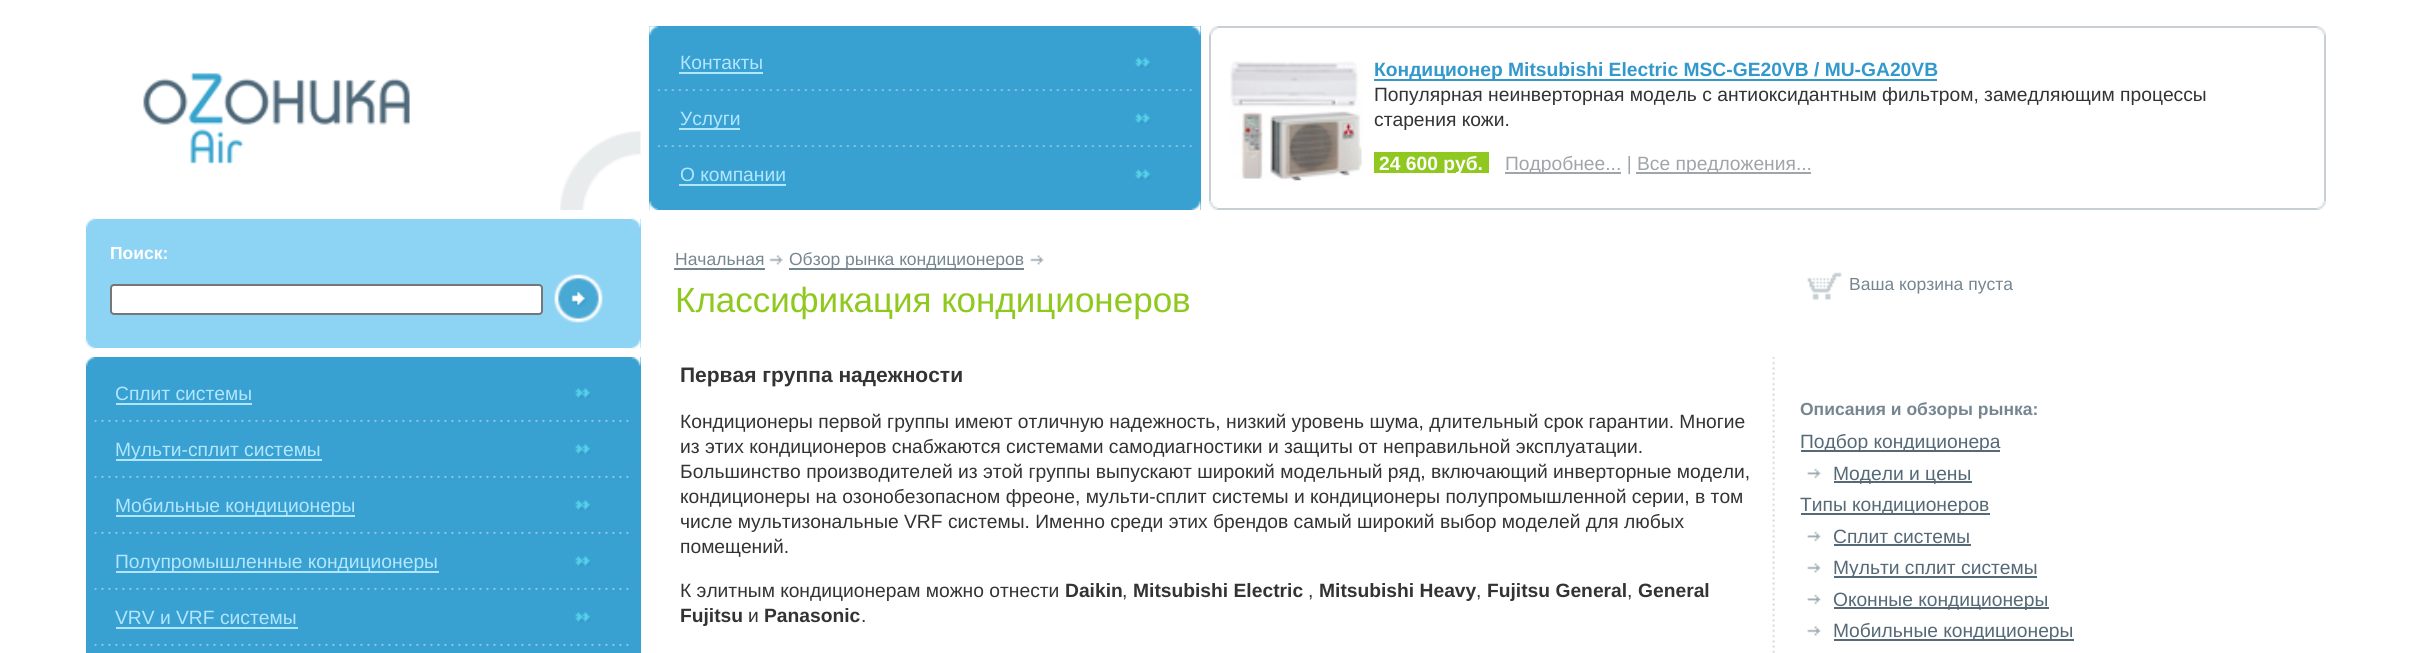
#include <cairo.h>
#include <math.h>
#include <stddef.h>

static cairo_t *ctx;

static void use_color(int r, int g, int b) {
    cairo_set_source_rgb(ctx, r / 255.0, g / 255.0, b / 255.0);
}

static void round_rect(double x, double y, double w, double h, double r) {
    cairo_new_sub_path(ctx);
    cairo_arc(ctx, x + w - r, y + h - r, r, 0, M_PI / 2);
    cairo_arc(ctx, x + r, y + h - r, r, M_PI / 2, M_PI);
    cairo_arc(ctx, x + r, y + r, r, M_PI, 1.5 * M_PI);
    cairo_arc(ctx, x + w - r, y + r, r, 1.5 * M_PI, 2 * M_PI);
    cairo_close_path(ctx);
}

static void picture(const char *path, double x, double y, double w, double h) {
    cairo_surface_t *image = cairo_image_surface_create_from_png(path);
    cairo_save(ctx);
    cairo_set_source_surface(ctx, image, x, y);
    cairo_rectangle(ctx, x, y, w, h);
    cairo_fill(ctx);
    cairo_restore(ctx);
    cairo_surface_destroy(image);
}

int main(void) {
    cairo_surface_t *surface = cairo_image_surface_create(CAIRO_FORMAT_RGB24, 2410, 653);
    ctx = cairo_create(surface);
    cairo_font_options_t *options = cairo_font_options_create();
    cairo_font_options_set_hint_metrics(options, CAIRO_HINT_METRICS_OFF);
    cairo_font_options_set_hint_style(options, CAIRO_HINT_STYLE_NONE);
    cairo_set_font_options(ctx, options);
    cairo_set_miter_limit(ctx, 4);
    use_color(255, 255, 255);
    cairo_paint(ctx);
    picture("img1.png", 560, 131, 81, 79);
    picture("img2.png", 143, 73, 267, 91);
    use_color(57, 161, 209);
    cairo_rectangle(ctx, 649, 26, 552, 9);
    cairo_fill(ctx);
    picture("img3.png", 649, 26, 9, 9);
    picture("img4.png", 1191, 26, 10, 9);
    picture("img5.png", 1209, 26, 9, 9);
    use_color(199, 207, 211);
    cairo_rectangle(ctx, 1218, 26, 1099, 2);
    cairo_fill(ctx);
    picture("img6.png", 2317, 26, 9, 9);
    use_color(57, 161, 209);
    cairo_rectangle(ctx, 649, 35, 552, 166);
    cairo_fill(ctx);
    use_color(199, 207, 211);
    cairo_rectangle(ctx, 1209, 35, 2, 166);
    cairo_fill(ctx);
    cairo_rectangle(ctx, 2324, 35, 2, 166);
    cairo_fill(ctx);
    cairo_select_font_face(ctx, "Liberation Sans", CAIRO_FONT_SLANT_NORMAL, CAIRO_FONT_WEIGHT_NORMAL);
    cairo_set_font_size(ctx, 19.25);
    use_color(177, 230, 255);
    cairo_move_to(ctx, 680, 69);
    cairo_show_text(ctx, "Контакты");
    cairo_rectangle(ctx, 679, 72, 84, 2);
    cairo_fill(ctx);
    picture("img7.png", 1135, 57, 16, 11);
    picture("img8.png", 658, 89, 534, 2);
    cairo_rectangle(ctx, 679, 128, 61, 2);
    cairo_fill(ctx);
    cairo_move_to(ctx, 680, 125);
    cairo_show_text(ctx, "Услуги");
    picture("img7.png", 1135, 113, 16, 11);
    picture("img8.png", 658, 145, 534, 2);
    cairo_move_to(ctx, 680, 181);
    cairo_show_text(ctx, "О компании");
    cairo_rectangle(ctx, 679, 184, 107, 2);
    cairo_fill(ctx);
    picture("img9.png", 1135, 169, 16, 11);
    picture("img10.png", 1230, 61, 133, 120);
    use_color(51, 153, 204);
    cairo_rectangle(ctx, 1374, 79, 563, 2);
    cairo_fill(ctx);
    cairo_select_font_face(ctx, "Liberation Sans", CAIRO_FONT_SLANT_NORMAL, CAIRO_FONT_WEIGHT_BOLD);
    cairo_move_to(ctx, 1374, 76);
    cairo_show_text(ctx, "Кондиционер Mitsubishi Electric MSC-GE20VB / MU-GA20VB");
    cairo_select_font_face(ctx, "Liberation Sans", CAIRO_FONT_SLANT_NORMAL, CAIRO_FONT_WEIGHT_NORMAL);
    use_color(51, 51, 51);
    cairo_move_to(ctx, 1374, 101);
    cairo_show_text(ctx, "Популярная неинверторная модель с антиоксидантным фильтром, замедляющим процессы");
    cairo_move_to(ctx, 1374, 126);
    cairo_show_text(ctx, "старения кожи.");
    use_color(143, 200, 30);
    cairo_rectangle(ctx, 1374, 152, 115, 21);
    cairo_fill(ctx);
    cairo_select_font_face(ctx, "Liberation Sans", CAIRO_FONT_SLANT_NORMAL, CAIRO_FONT_WEIGHT_BOLD);
    use_color(255, 255, 255);
    cairo_move_to(ctx, 1379, 170);
    cairo_show_text(ctx, "24 600 руб.");
    use_color(159, 165, 168);
    cairo_rectangle(ctx, 1505, 172, 116, 2);
    cairo_fill(ctx);
    cairo_select_font_face(ctx, "Liberation Sans", CAIRO_FONT_SLANT_NORMAL, CAIRO_FONT_WEIGHT_NORMAL);
    cairo_move_to(ctx, 1505, 170);
    cairo_show_text(ctx, "Подробнее... |");
    cairo_rectangle(ctx, 1636, 172, 175, 2);
    cairo_fill(ctx);
    cairo_move_to(ctx, 1637, 170);
    cairo_show_text(ctx, "Все предложения...");
    use_color(57, 161, 209);
    cairo_rectangle(ctx, 649, 201, 552, 9);
    cairo_fill(ctx);
    picture("img11.png", 649, 201, 9, 9);
    picture("img12.png", 1191, 201, 10, 9);
    picture("img13.png", 1209, 201, 9, 9);
    use_color(199, 207, 211);
    cairo_rectangle(ctx, 1218, 208, 1099, 2);
    cairo_fill(ctx);
    picture("img14.png", 2317, 201, 9, 9);
    use_color(141, 211, 244);
    cairo_rectangle(ctx, 86, 219, 555, 129);
    cairo_fill(ctx);
    picture("img15.png", 85, 218, 10, 10);
    picture("img16.png", 631, 218, 10, 10);
    cairo_select_font_face(ctx, "Liberation Sans", CAIRO_FONT_SLANT_NORMAL, CAIRO_FONT_WEIGHT_BOLD);
    cairo_set_font_size(ctx, 17.5);
    use_color(255, 255, 255);
    cairo_move_to(ctx, 110, 259);
    cairo_show_text(ctx, "Поиск:");
    round_rect(111, 285, 431, 29, 3);
    cairo_fill_preserve(ctx);
    use_color(118, 118, 118);
    cairo_stroke(ctx);
    picture("img17.png", 554, 274, 49, 49);
    picture("img18.png", 85, 339, 10, 10);
    picture("img19.png", 631, 339, 10, 10);
    cairo_select_font_face(ctx, "Liberation Sans", CAIRO_FONT_SLANT_NORMAL, CAIRO_FONT_WEIGHT_NORMAL);
    use_color(118, 134, 145);
    cairo_move_to(ctx, 675, 265);
    cairo_show_text(ctx, "Начальная");
    cairo_rectangle(ctx, 674, 268, 91, 2);
    cairo_fill(ctx);
    picture("img20.png", 769, 255, 14, 10);
    cairo_rectangle(ctx, 789, 268, 235, 2);
    cairo_fill(ctx);
    cairo_move_to(ctx, 789, 265);
    cairo_show_text(ctx, "Обзор рынка кондиционеров");
    picture("img21.png", 1030, 255, 14, 10);
    cairo_set_font_size(ctx, 35);
    use_color(143, 200, 30);
    cairo_move_to(ctx, 675, 312);
    cairo_show_text(ctx, "Классификация кондиционеров");
    picture("img22.png", 1807, 272, 35, 28);
    cairo_set_font_size(ctx, 17.5);
    use_color(118, 134, 145);
    cairo_move_to(ctx, 1849, 290);
    cairo_show_text(ctx, "Ваша корзина пуста");
    use_color(57, 161, 209);
    cairo_rectangle(ctx, 86, 357, 555, 296);
    cairo_fill(ctx);
    picture("img23.png", 85, 357, 10, 9);
    picture("img24.png", 631, 357, 10, 9);
    cairo_set_font_size(ctx, 19.25);
    use_color(177, 230, 255);
    cairo_move_to(ctx, 115, 400);
    cairo_show_text(ctx, "Сплит системы");
    cairo_rectangle(ctx, 116, 403, 136, 2);
    cairo_fill(ctx);
    picture("img25.png", 575, 388, 16, 11);
    picture("img26.png", 94, 420, 535, 2);
    cairo_rectangle(ctx, 116, 459, 206, 2);
    cairo_fill(ctx);
    cairo_move_to(ctx, 115, 456);
    cairo_show_text(ctx, "Мульти-сплит системы");
    picture("img25.png", 575, 444, 16, 11);
    picture("img26.png", 94, 476, 535, 2);
    cairo_rectangle(ctx, 116, 515, 239, 2);
    cairo_fill(ctx);
    cairo_move_to(ctx, 115, 512);
    cairo_show_text(ctx, "Мобильные кондиционеры");
    picture("img25.png", 575, 500, 16, 11);
    picture("img26.png", 94, 532, 535, 2);
    cairo_rectangle(ctx, 116, 571, 323, 2);
    cairo_fill(ctx);
    cairo_move_to(ctx, 115, 568);
    cairo_show_text(ctx, "Полупромышленные кондиционеры");
    picture("img25.png", 575, 556, 16, 11);
    picture("img26.png", 94, 588, 535, 2);
    cairo_move_to(ctx, 115, 624);
    cairo_show_text(ctx, "VRV и VRF системы");
    cairo_rectangle(ctx, 116, 627, 182, 2);
    cairo_fill(ctx);
    picture("img25.png", 575, 612, 16, 11);
    picture("img26.png", 94, 644, 535, 2);
    cairo_select_font_face(ctx, "Liberation Sans", CAIRO_FONT_SLANT_NORMAL, CAIRO_FONT_WEIGHT_BOLD);
    cairo_set_font_size(ctx, 21);
    use_color(51, 51, 51);
    cairo_move_to(ctx, 680, 382);
    cairo_show_text(ctx, "Первая группа надежности");
    cairo_select_font_face(ctx, "Liberation Sans", CAIRO_FONT_SLANT_NORMAL, CAIRO_FONT_WEIGHT_NORMAL);
    cairo_set_font_size(ctx, 19.25);
    cairo_move_to(ctx, 680, 428);
    cairo_show_text(ctx, "Кондиционеры первой группы имеют отличную надежность, низкий уровень шума, длительный срок гарантии. Многие");
    cairo_move_to(ctx, 680, 453);
    cairo_show_text(ctx, "из этих кондиционеров снабжаются системами самодиагностики и защиты от неправильной эксплуатации.");
    cairo_move_to(ctx, 680, 478);
    cairo_show_text(ctx, "Большинство производителей из этой группы выпускают широкий модельный ряд, включающий инверторные модели,");
    cairo_move_to(ctx, 680, 503);
    cairo_show_text(ctx, "кондиционеры на озонобезопасном фреоне, мульти-сплит системы и кондиционеры полупромышленной серии, в том");
    cairo_move_to(ctx, 680, 528);
    cairo_show_text(ctx, "числе мультизональные VRF системы. Именно среди этих брендов самый широкий выбор моделей для любых");
    cairo_move_to(ctx, 680, 553);
    cairo_show_text(ctx, "помещений.");
    cairo_move_to(ctx, 680, 597);
    cairo_show_text(ctx, "К элитным кондиционерам можно отнести");
    cairo_select_font_face(ctx, "Liberation Sans", CAIRO_FONT_SLANT_NORMAL, CAIRO_FONT_WEIGHT_BOLD);
    cairo_move_to(ctx, 1065, 597);
    cairo_show_text(ctx, "Daikin");
    cairo_select_font_face(ctx, "Liberation Sans", CAIRO_FONT_SLANT_NORMAL, CAIRO_FONT_WEIGHT_NORMAL);
    cairo_move_to(ctx, 1122, 597);
    cairo_show_text(ctx, ",");
    cairo_select_font_face(ctx, "Liberation Sans", CAIRO_FONT_SLANT_NORMAL, CAIRO_FONT_WEIGHT_BOLD);
    cairo_move_to(ctx, 1133, 597);
    cairo_show_text(ctx, "Mitsubishi Electric");
    cairo_select_font_face(ctx, "Liberation Sans", CAIRO_FONT_SLANT_NORMAL, CAIRO_FONT_WEIGHT_NORMAL);
    cairo_move_to(ctx, 1308, 597);
    cairo_show_text(ctx, ",");
    cairo_select_font_face(ctx, "Liberation Sans", CAIRO_FONT_SLANT_NORMAL, CAIRO_FONT_WEIGHT_BOLD);
    cairo_move_to(ctx, 1319, 597);
    cairo_show_text(ctx, "Mitsubishi Heavy");
    cairo_select_font_face(ctx, "Liberation Sans", CAIRO_FONT_SLANT_NORMAL, CAIRO_FONT_WEIGHT_NORMAL);
    cairo_move_to(ctx, 1476, 597);
    cairo_show_text(ctx, ",");
    cairo_select_font_face(ctx, "Liberation Sans", CAIRO_FONT_SLANT_NORMAL, CAIRO_FONT_WEIGHT_BOLD);
    cairo_move_to(ctx, 1487, 597);
    cairo_show_text(ctx, "Fujitsu General");
    cairo_select_font_face(ctx, "Liberation Sans", CAIRO_FONT_SLANT_NORMAL, CAIRO_FONT_WEIGHT_NORMAL);
    cairo_move_to(ctx, 1627, 597);
    cairo_show_text(ctx, ",");
    cairo_select_font_face(ctx, "Liberation Sans", CAIRO_FONT_SLANT_NORMAL, CAIRO_FONT_WEIGHT_BOLD);
    cairo_move_to(ctx, 1638, 597);
    cairo_show_text(ctx, "General");
    cairo_move_to(ctx, 680, 622);
    cairo_show_text(ctx, "Fujitsu");
    cairo_select_font_face(ctx, "Liberation Sans", CAIRO_FONT_SLANT_NORMAL, CAIRO_FONT_WEIGHT_NORMAL);
    cairo_move_to(ctx, 748, 622);
    cairo_show_text(ctx, "и");
    cairo_select_font_face(ctx, "Liberation Sans", CAIRO_FONT_SLANT_NORMAL, CAIRO_FONT_WEIGHT_BOLD);
    cairo_move_to(ctx, 764, 622);
    cairo_show_text(ctx, "Panasonic");
    cairo_select_font_face(ctx, "Liberation Sans", CAIRO_FONT_SLANT_NORMAL, CAIRO_FONT_WEIGHT_NORMAL);
    cairo_move_to(ctx, 861, 622);
    cairo_show_text(ctx, ".");
    picture("img27.png", 1772, 357, 3, 296);
    cairo_select_font_face(ctx, "Liberation Sans", CAIRO_FONT_SLANT_NORMAL, CAIRO_FONT_WEIGHT_BOLD);
    cairo_set_font_size(ctx, 17.5);
    use_color(118, 134, 145);
    cairo_move_to(ctx, 1800, 415);
    cairo_show_text(ctx, "Описания и обзоры рынка:");
    use_color(85, 105, 119);
    cairo_rectangle(ctx, 1801, 450, 199, 2);
    cairo_fill(ctx);
    cairo_select_font_face(ctx, "Liberation Sans", CAIRO_FONT_SLANT_NORMAL, CAIRO_FONT_WEIGHT_NORMAL);
    cairo_set_font_size(ctx, 19.25);
    cairo_move_to(ctx, 1800, 448);
    cairo_show_text(ctx, "Подбор кондиционера");
    picture("img28.png", 1807, 468, 14, 11);
    cairo_rectangle(ctx, 1834, 481, 138, 2);
    cairo_fill(ctx);
    cairo_move_to(ctx, 1833, 480);
    cairo_show_text(ctx, "Модели и цены");
    cairo_rectangle(ctx, 1801, 513, 189, 2);
    cairo_fill(ctx);
    cairo_move_to(ctx, 1800, 511);
    cairo_show_text(ctx, "Типы кондиционеров");
    picture("img28.png", 1807, 531, 14, 11);
    cairo_move_to(ctx, 1833, 543);
    cairo_show_text(ctx, "Сплит системы");
    cairo_rectangle(ctx, 1834, 544, 137, 2);
    cairo_fill(ctx);
    picture("img21.png", 1807, 563, 14, 10);
    cairo_rectangle(ctx, 1834, 576, 203, 2);
    cairo_fill(ctx);
    cairo_move_to(ctx, 1833, 574);
    cairo_show_text(ctx, "Мульти сплит системы");
    picture("img28.png", 1807, 594, 14, 11);
    cairo_rectangle(ctx, 1834, 607, 215, 2);
    cairo_fill(ctx);
    cairo_move_to(ctx, 1833, 606);
    cairo_show_text(ctx, "Оконные кондиционеры");
    picture("img21.png", 1807, 626, 14, 10);
    cairo_rectangle(ctx, 1834, 639, 240, 2);
    cairo_fill(ctx);
    cairo_move_to(ctx, 1833, 637);
    cairo_show_text(ctx, "Мобильные кондиционеры");
    cairo_surface_write_to_png(surface, "result.png");
    cairo_font_options_destroy(options);
    cairo_destroy(ctx);
    cairo_surface_destroy(surface);
    return 0;
}
